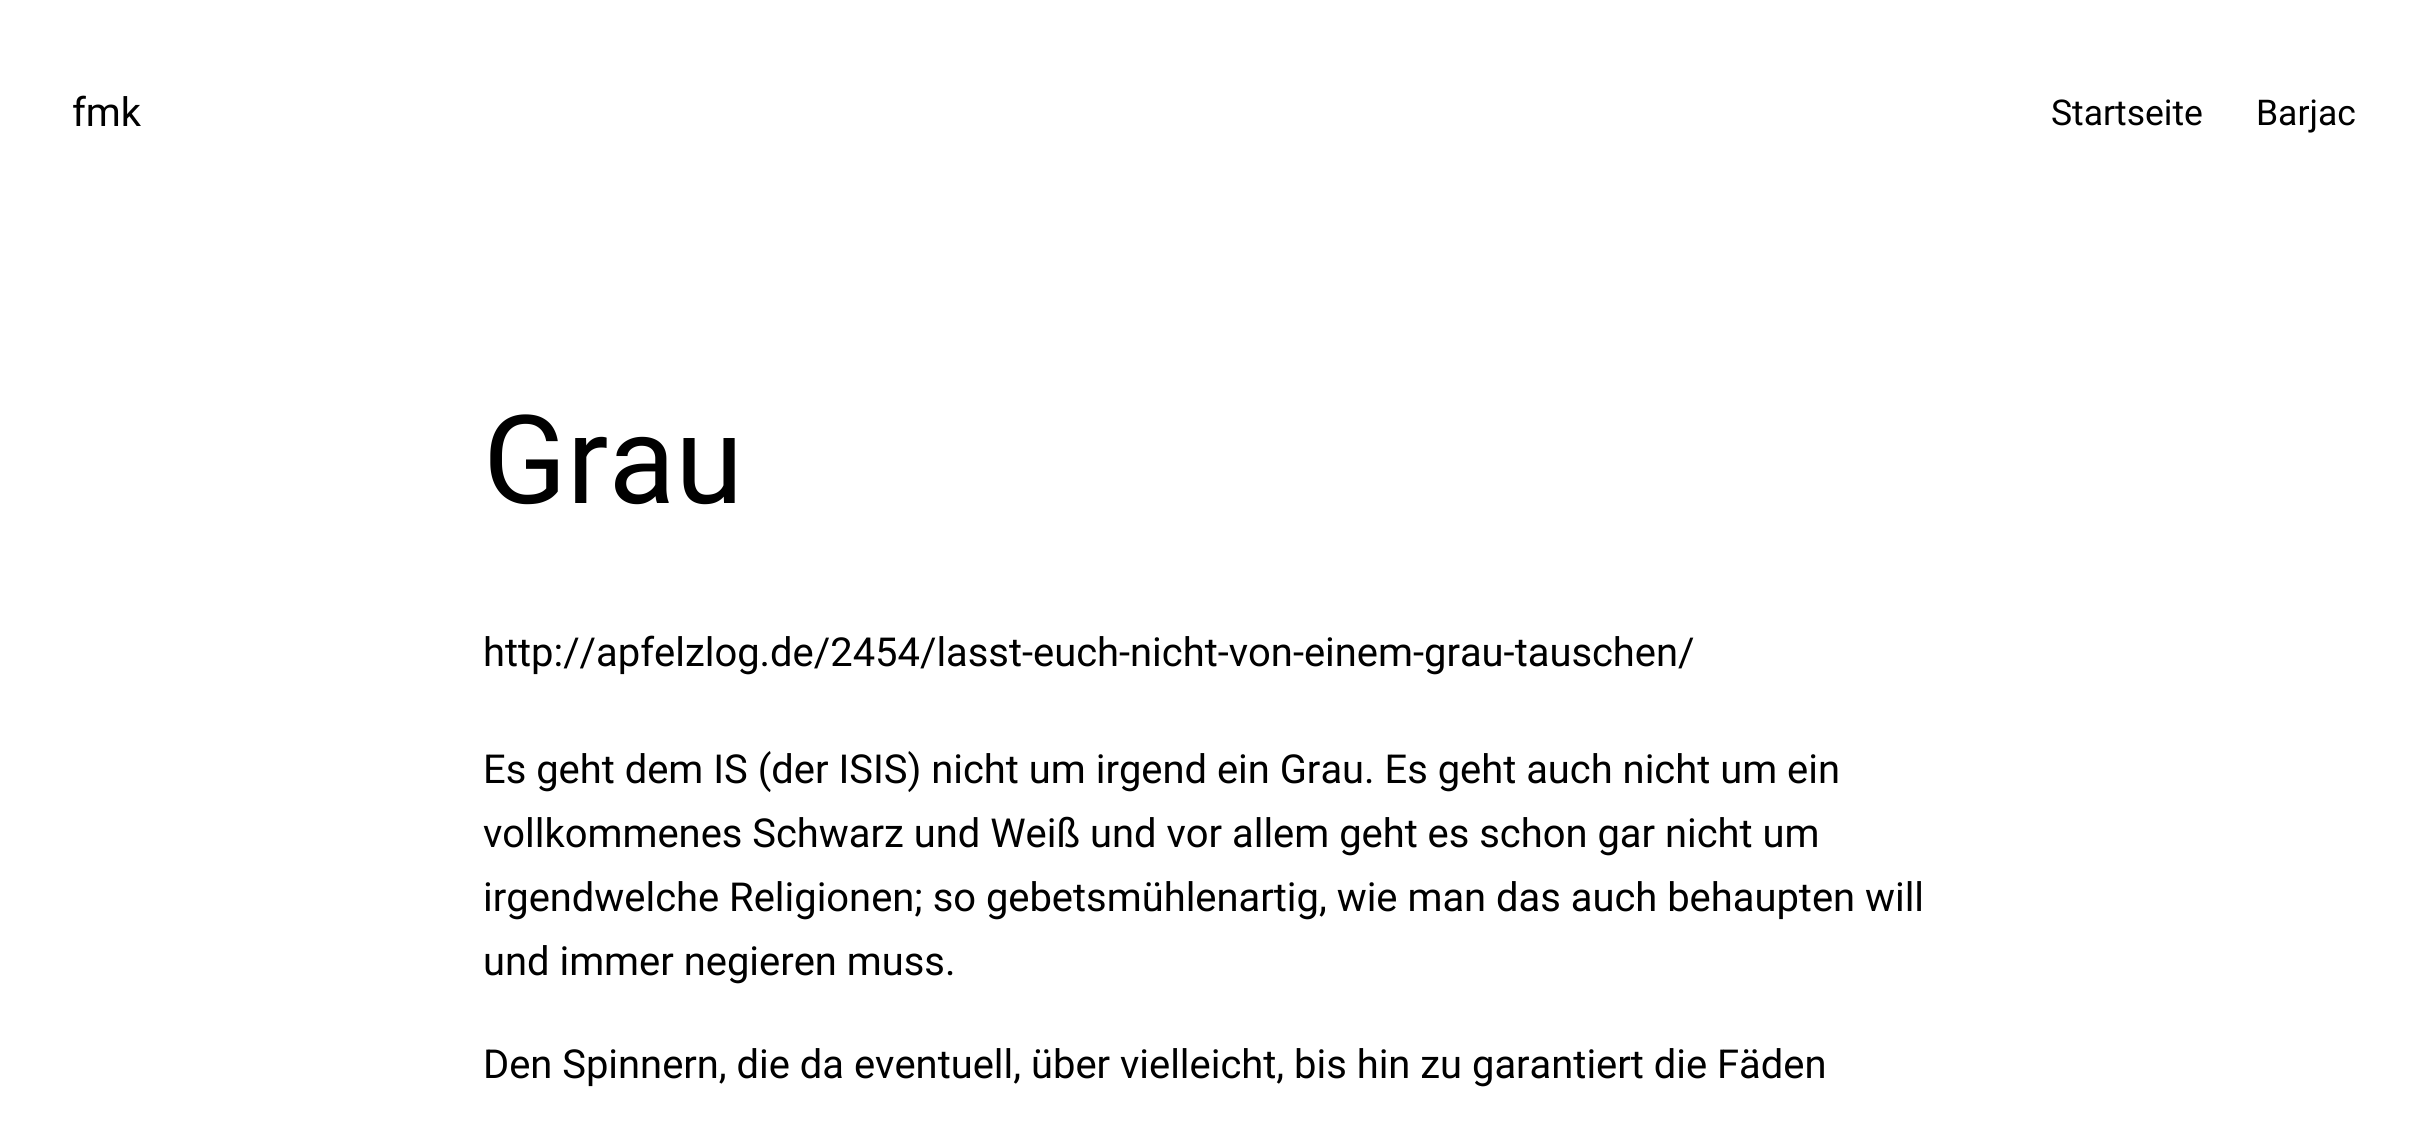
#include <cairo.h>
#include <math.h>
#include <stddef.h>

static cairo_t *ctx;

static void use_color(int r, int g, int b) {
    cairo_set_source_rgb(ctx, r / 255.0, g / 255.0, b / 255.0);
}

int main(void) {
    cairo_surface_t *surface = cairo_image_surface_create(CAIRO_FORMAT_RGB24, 2427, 1121);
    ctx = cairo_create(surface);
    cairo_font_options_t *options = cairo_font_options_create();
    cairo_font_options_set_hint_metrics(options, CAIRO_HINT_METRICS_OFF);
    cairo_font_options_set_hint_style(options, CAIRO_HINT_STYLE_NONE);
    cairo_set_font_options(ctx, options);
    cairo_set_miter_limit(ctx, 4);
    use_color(255, 255, 255);
    cairo_paint(ctx);
    cairo_select_font_face(ctx, "Roboto", CAIRO_FONT_SLANT_NORMAL, CAIRO_FONT_WEIGHT_NORMAL);
    cairo_set_font_size(ctx, 39.9);
    use_color(0, 0, 0);
    cairo_move_to(ctx, 72, 126);
    cairo_show_text(ctx, "fmk");
    cairo_set_font_size(ctx, 35.5);
    cairo_move_to(ctx, 2051, 125);
    cairo_show_text(ctx, "Startseite");
    cairo_move_to(ctx, 2256, 125);
    cairo_show_text(ctx, "Barjac");
    cairo_set_font_size(ctx, 123);
    cairo_move_to(ctx, 483, 503);
    cairo_show_text(ctx, "Grau");
    cairo_set_font_size(ctx, 39.9);
    cairo_move_to(ctx, 483, 666);
    cairo_show_text(ctx, "http://apfelzlog.de/2454/lasst-euch-nicht-von-einem-grau-tauschen/");
    cairo_move_to(ctx, 483, 783);
    cairo_show_text(ctx, "Es geht dem IS (der ISIS) nicht um irgend ein Grau. Es geht auch nicht um ein");
    cairo_move_to(ctx, 483, 847);
    cairo_show_text(ctx, "vollkommenes Schwarz und Weiß und vor allem geht es schon gar nicht um");
    cairo_move_to(ctx, 483, 911);
    cairo_show_text(ctx, "irgendwelche Religionen; so gebetsmühlenartig, wie man das auch behaupten will");
    cairo_move_to(ctx, 483, 975);
    cairo_show_text(ctx, "und immer negieren muss.");
    cairo_move_to(ctx, 483, 1078);
    cairo_show_text(ctx, "Den Spinnern, die da eventuell, über vielleicht, bis hin zu garantiert die Fäden");
    cairo_surface_write_to_png(surface, "result.png");
    cairo_font_options_destroy(options);
    cairo_destroy(ctx);
    cairo_surface_destroy(surface);
    return 0;
}
